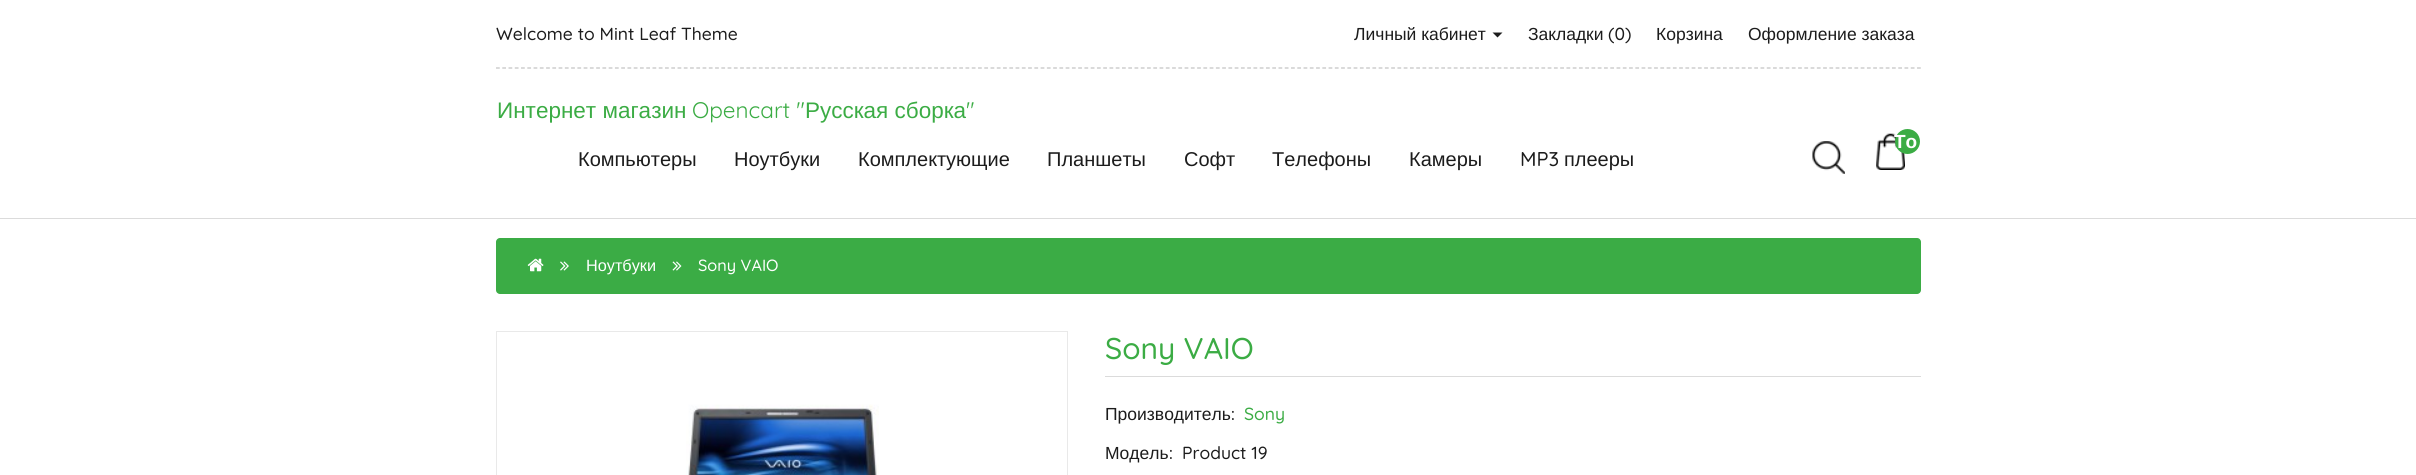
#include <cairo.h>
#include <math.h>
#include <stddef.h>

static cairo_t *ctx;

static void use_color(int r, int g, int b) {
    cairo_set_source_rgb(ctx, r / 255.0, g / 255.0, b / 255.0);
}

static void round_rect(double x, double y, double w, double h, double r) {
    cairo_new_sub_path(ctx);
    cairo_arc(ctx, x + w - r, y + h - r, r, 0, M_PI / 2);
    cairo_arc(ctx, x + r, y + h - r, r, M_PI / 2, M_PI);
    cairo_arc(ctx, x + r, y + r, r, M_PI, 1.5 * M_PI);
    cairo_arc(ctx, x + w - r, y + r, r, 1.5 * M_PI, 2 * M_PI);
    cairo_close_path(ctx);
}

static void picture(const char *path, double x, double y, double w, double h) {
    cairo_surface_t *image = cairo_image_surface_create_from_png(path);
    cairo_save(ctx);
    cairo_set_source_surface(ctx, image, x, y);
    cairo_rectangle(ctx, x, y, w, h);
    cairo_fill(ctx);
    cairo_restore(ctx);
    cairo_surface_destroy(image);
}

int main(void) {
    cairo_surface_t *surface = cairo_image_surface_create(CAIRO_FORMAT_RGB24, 2416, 475);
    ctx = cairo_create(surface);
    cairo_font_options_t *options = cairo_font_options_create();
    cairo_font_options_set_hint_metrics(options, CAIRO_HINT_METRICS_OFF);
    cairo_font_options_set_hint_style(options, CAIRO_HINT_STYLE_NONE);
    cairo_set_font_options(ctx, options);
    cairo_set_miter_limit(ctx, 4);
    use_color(255, 255, 255);
    cairo_paint(ctx);
    use_color(219, 219, 219);
    cairo_rectangle(ctx, 0, 218, 2416, 1);
    cairo_fill(ctx);
    cairo_new_path(ctx);
    cairo_move_to(ctx, 496, 68);
    cairo_line_to(ctx, 1921, 68);
    use_color(193, 193, 193);
    cairo_set_line_width(ctx, 1.2);
    cairo_set_dash(ctx, (double[]){3.75, 2.51}, 2, 0);
    cairo_stroke(ctx);
    cairo_select_font_face(ctx, "Quicksand Medium", CAIRO_FONT_SLANT_NORMAL, CAIRO_FONT_WEIGHT_NORMAL);
    cairo_set_font_size(ctx, 17.5);
    use_color(28, 28, 28);
    cairo_move_to(ctx, 496, 40);
    cairo_show_text(ctx, "Welcome to Mint Leaf Theme");
    cairo_select_font_face(ctx, "Liberation Sans", CAIRO_FONT_SLANT_NORMAL, CAIRO_FONT_WEIGHT_NORMAL);
    cairo_move_to(ctx, 1354, 40);
    cairo_show_text(ctx, "Личный кабинет");
    cairo_new_path(ctx);
    cairo_move_to(ctx, 1492.5, 32.5);
    cairo_line_to(ctx, 1502.5, 32.5);
    cairo_line_to(ctx, 1497.5, 37.5);
    cairo_close_path(ctx);
    cairo_fill(ctx);
    cairo_move_to(ctx, 1528, 40);
    cairo_show_text(ctx, "Закладки");
    cairo_select_font_face(ctx, "Quicksand Medium", CAIRO_FONT_SLANT_NORMAL, CAIRO_FONT_WEIGHT_NORMAL);
    cairo_move_to(ctx, 1608, 40);
    cairo_show_text(ctx, "(0)");
    cairo_select_font_face(ctx, "Liberation Sans", CAIRO_FONT_SLANT_NORMAL, CAIRO_FONT_WEIGHT_NORMAL);
    cairo_move_to(ctx, 1656, 40);
    cairo_show_text(ctx, "Корзина");
    cairo_move_to(ctx, 1748, 40);
    cairo_show_text(ctx, "Оформление заказа");
    cairo_set_font_size(ctx, 22.5);
    use_color(59, 172, 68);
    cairo_move_to(ctx, 497, 118);
    cairo_show_text(ctx, "Интернет магазин");
    cairo_select_font_face(ctx, "Quicksand", CAIRO_FONT_SLANT_NORMAL, CAIRO_FONT_WEIGHT_NORMAL);
    cairo_move_to(ctx, 692, 118);
    cairo_show_text(ctx, "Opencart \"");
    cairo_select_font_face(ctx, "Liberation Sans", CAIRO_FONT_SLANT_NORMAL, CAIRO_FONT_WEIGHT_NORMAL);
    cairo_move_to(ctx, 805, 118);
    cairo_show_text(ctx, "Русская сборка");
    cairo_select_font_face(ctx, "Quicksand", CAIRO_FONT_SLANT_NORMAL, CAIRO_FONT_WEIGHT_NORMAL);
    cairo_move_to(ctx, 966, 118);
    cairo_show_text(ctx, "\"");
    picture("img1.png", 1812, 141, 33, 33);
    picture("img2.png", 1876, 133, 29, 37);
    cairo_arc(ctx, 1907.5, 141.5, 12.5, 0, 2 * M_PI);
    cairo_fill(ctx);
    cairo_select_font_face(ctx, "Liberation Sans", CAIRO_FONT_SLANT_NORMAL, CAIRO_FONT_WEIGHT_BOLD);
    cairo_set_font_size(ctx, 19);
    use_color(255, 255, 255);
    cairo_move_to(ctx, 1894, 148);
    cairo_show_text(ctx, "То");
    cairo_select_font_face(ctx, "Liberation Sans", CAIRO_FONT_SLANT_NORMAL, CAIRO_FONT_WEIGHT_NORMAL);
    cairo_set_font_size(ctx, 20);
    use_color(28, 28, 28);
    cairo_move_to(ctx, 578, 166);
    cairo_show_text(ctx, "Компьютеры");
    cairo_move_to(ctx, 734, 166);
    cairo_show_text(ctx, "Ноутбуки");
    cairo_move_to(ctx, 858, 166);
    cairo_show_text(ctx, "Комплектующие");
    cairo_move_to(ctx, 1047, 166);
    cairo_show_text(ctx, "Планшеты");
    cairo_move_to(ctx, 1184, 166);
    cairo_show_text(ctx, "Софт");
    cairo_move_to(ctx, 1272, 166);
    cairo_show_text(ctx, "Телефоны");
    cairo_move_to(ctx, 1409, 166);
    cairo_show_text(ctx, "Камеры");
    cairo_select_font_face(ctx, "Quicksand Medium", CAIRO_FONT_SLANT_NORMAL, CAIRO_FONT_WEIGHT_NORMAL);
    cairo_move_to(ctx, 1520, 166);
    cairo_show_text(ctx, "MP3");
    cairo_select_font_face(ctx, "Liberation Sans", CAIRO_FONT_SLANT_NORMAL, CAIRO_FONT_WEIGHT_NORMAL);
    cairo_move_to(ctx, 1564, 166);
    cairo_show_text(ctx, "плееры");
    use_color(59, 172, 69);
    round_rect(496, 238, 1425, 56, 4);
    cairo_fill(ctx);
    picture("img3.png", 527, 258, 17, 14);
    picture("img4.png", 560, 261, 9, 10);
    cairo_set_font_size(ctx, 16.25);
    use_color(255, 255, 255);
    cairo_move_to(ctx, 586, 271);
    cairo_show_text(ctx, "Ноутбуки");
    picture("img5.png", 672, 261, 10, 10);
    cairo_select_font_face(ctx, "Quicksand Medium", CAIRO_FONT_SLANT_NORMAL, CAIRO_FONT_WEIGHT_NORMAL);
    cairo_move_to(ctx, 698, 271);
    cairo_show_text(ctx, "Sony VAIO");
    cairo_rectangle(ctx, 496.5, 331.5, 571, 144);
    use_color(233, 233, 233);
    cairo_set_line_width(ctx, 1);
    cairo_set_dash(ctx, NULL, 0, 0);
    cairo_stroke(ctx);
    picture("img6.png", 686, 404, 193, 71);
    cairo_set_font_size(ctx, 30);
    use_color(59, 172, 68);
    cairo_move_to(ctx, 1105, 359);
    cairo_show_text(ctx, "Sony VAIO");
    use_color(219, 219, 219);
    cairo_rectangle(ctx, 1105, 376, 816, 1);
    cairo_fill(ctx);
    cairo_select_font_face(ctx, "Liberation Sans", CAIRO_FONT_SLANT_NORMAL, CAIRO_FONT_WEIGHT_NORMAL);
    cairo_set_font_size(ctx, 17.5);
    use_color(28, 28, 28);
    cairo_move_to(ctx, 1105, 420);
    cairo_show_text(ctx, "Производитель");
    cairo_select_font_face(ctx, "Quicksand Medium", CAIRO_FONT_SLANT_NORMAL, CAIRO_FONT_WEIGHT_NORMAL);
    cairo_move_to(ctx, 1231, 420);
    cairo_show_text(ctx, ":");
    use_color(59, 172, 68);
    cairo_move_to(ctx, 1244, 420);
    cairo_show_text(ctx, "Sony");
    cairo_select_font_face(ctx, "Liberation Sans", CAIRO_FONT_SLANT_NORMAL, CAIRO_FONT_WEIGHT_NORMAL);
    use_color(28, 28, 28);
    cairo_move_to(ctx, 1105, 459);
    cairo_show_text(ctx, "Модель");
    cairo_select_font_face(ctx, "Quicksand Medium", CAIRO_FONT_SLANT_NORMAL, CAIRO_FONT_WEIGHT_NORMAL);
    cairo_move_to(ctx, 1169, 459);
    cairo_show_text(ctx, ":");
    cairo_move_to(ctx, 1182, 459);
    cairo_show_text(ctx, "Product 19");
    cairo_surface_write_to_png(surface, "result.png");
    cairo_font_options_destroy(options);
    cairo_destroy(ctx);
    cairo_surface_destroy(surface);
    return 0;
}
